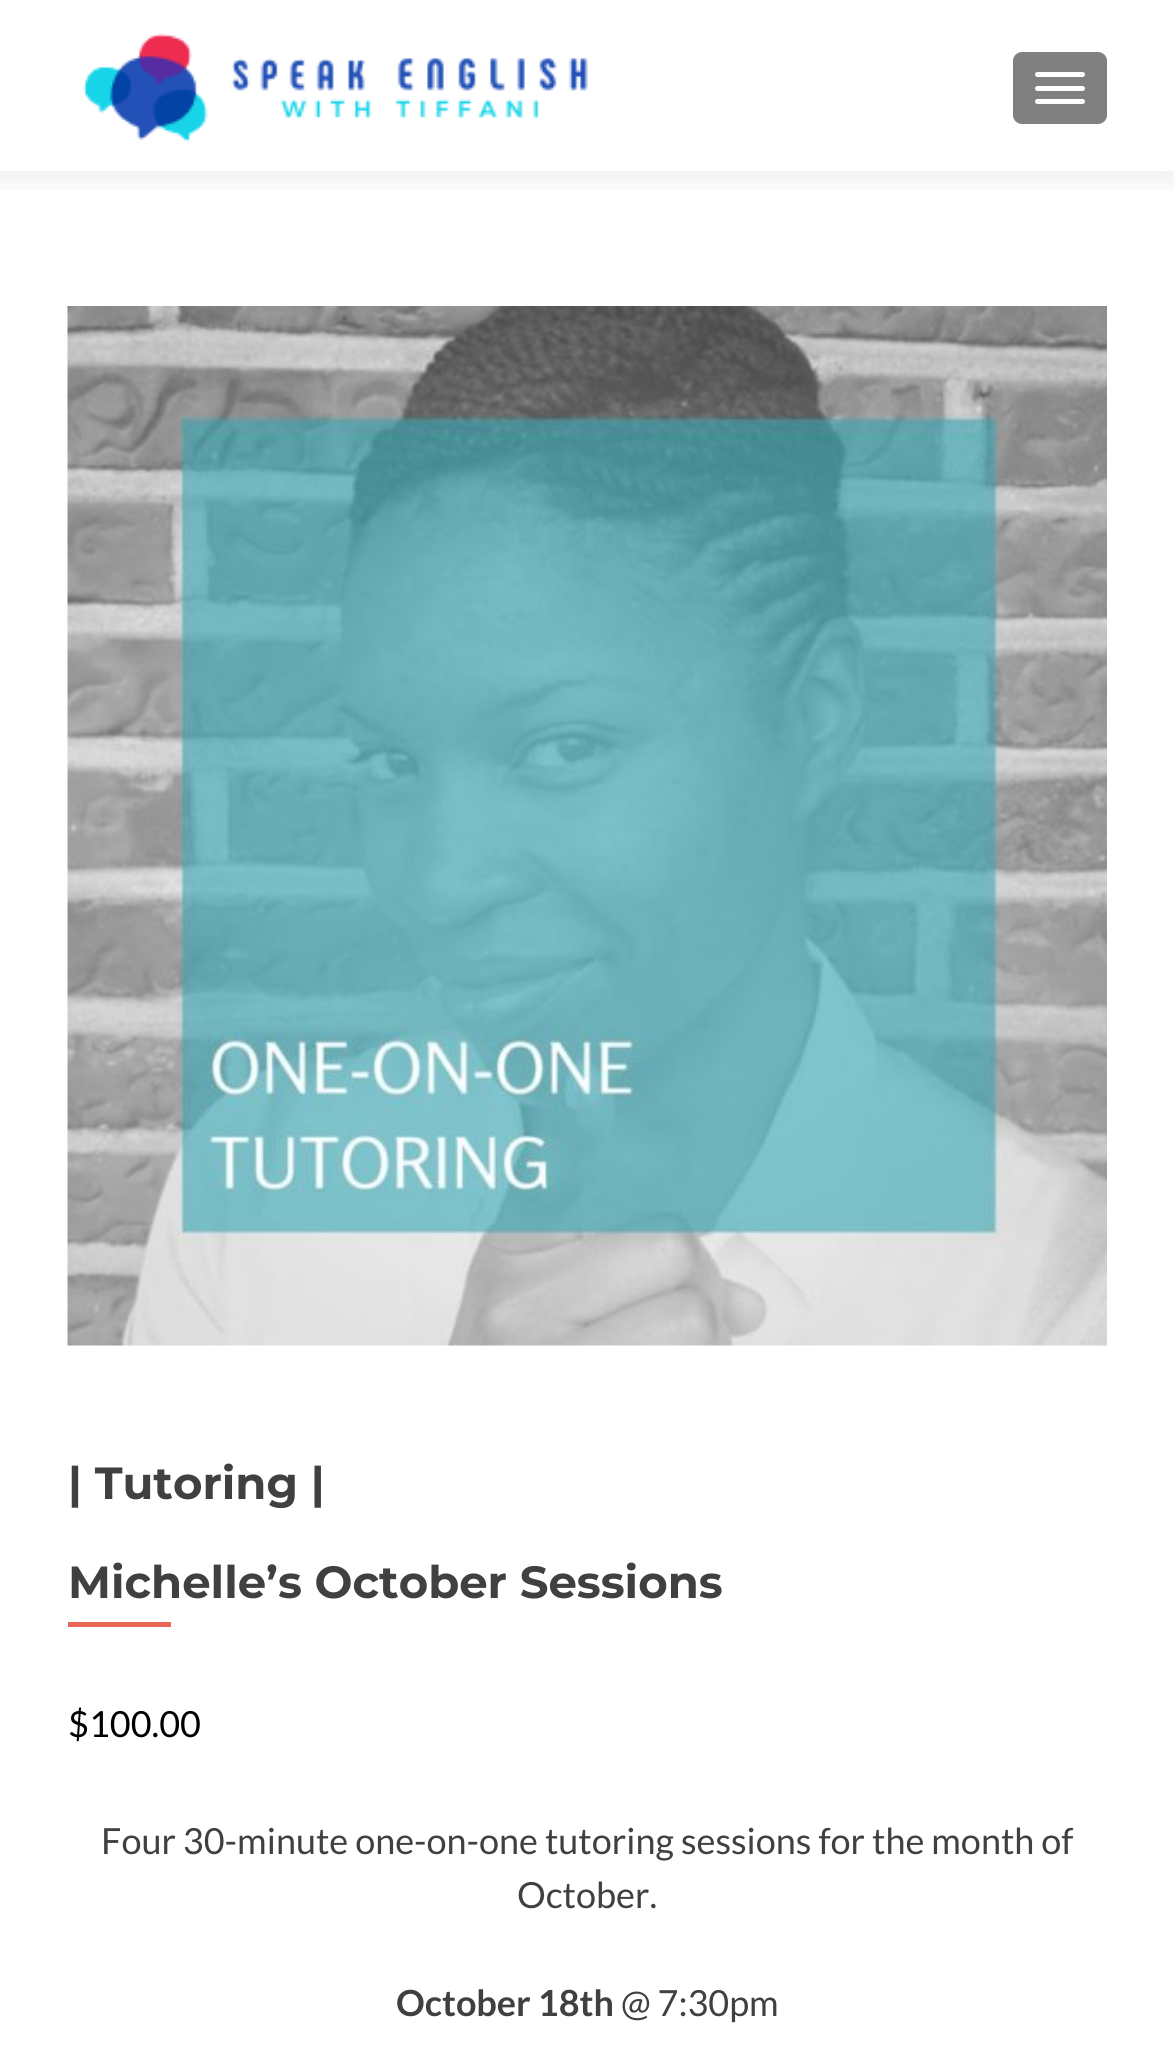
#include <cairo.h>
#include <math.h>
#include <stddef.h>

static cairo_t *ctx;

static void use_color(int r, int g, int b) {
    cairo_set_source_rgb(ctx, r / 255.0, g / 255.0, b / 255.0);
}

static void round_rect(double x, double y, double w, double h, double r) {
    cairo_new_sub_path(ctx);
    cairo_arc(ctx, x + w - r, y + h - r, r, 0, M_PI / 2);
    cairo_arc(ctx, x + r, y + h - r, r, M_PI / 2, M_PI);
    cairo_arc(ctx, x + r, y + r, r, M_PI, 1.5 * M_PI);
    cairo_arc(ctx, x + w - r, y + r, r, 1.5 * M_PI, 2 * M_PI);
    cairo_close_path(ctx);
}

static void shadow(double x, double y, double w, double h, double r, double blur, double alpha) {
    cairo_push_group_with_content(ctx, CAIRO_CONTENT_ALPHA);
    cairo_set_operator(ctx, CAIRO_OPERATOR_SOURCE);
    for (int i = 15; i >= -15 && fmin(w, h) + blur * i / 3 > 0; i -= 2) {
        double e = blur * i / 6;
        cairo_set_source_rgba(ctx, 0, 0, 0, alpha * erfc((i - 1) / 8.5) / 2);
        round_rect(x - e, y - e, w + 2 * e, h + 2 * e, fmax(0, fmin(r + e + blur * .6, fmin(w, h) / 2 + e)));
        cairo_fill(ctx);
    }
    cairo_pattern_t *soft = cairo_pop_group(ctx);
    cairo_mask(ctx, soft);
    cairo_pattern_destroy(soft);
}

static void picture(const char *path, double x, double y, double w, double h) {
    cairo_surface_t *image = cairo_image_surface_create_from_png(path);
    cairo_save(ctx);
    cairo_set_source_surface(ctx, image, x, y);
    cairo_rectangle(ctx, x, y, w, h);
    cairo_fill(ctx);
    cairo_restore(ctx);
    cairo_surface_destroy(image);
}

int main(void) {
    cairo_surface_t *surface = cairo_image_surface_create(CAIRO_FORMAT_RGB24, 1174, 2054);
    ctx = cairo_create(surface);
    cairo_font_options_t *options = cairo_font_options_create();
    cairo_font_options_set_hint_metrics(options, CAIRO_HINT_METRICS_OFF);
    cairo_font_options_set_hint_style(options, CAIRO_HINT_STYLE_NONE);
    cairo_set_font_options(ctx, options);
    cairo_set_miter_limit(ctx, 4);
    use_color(255, 255, 255);
    cairo_paint(ctx);
    cairo_save(ctx);
    cairo_rectangle(ctx, 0, 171, 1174, 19);
    cairo_clip(ctx);
    use_color(50, 50, 50);
    shadow(0, 11, 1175, 171, 0, 12.5, 0.08);
    cairo_restore(ctx);
    picture("img1.png", 82, 33, 506, 110);
    use_color(128, 128, 128);
    round_rect(1013, 52, 94, 72, 9);
    cairo_fill(ctx);
    use_color(255, 255, 255);
    round_rect(1035, 72, 50, 5, 2.5);
    cairo_fill(ctx);
    round_rect(1035, 86, 50, 5, 2.5);
    cairo_fill(ctx);
    round_rect(1035, 99, 50, 5, 2.5);
    cairo_fill(ctx);
    picture("img2.png", 67, 306, 1040, 1040);
    cairo_select_font_face(ctx, "Montserrat", CAIRO_FONT_SLANT_NORMAL, CAIRO_FONT_WEIGHT_BOLD);
    cairo_set_font_size(ctx, 45);
    use_color(64, 64, 64);
    cairo_move_to(ctx, 68, 1499);
    cairo_show_text(ctx, "| Tutoring |");
    cairo_move_to(ctx, 68, 1598);
    cairo_show_text(ctx, "Michelle’s October Sessions");
    use_color(233, 102, 86);
    cairo_rectangle(ctx, 68, 1622, 103, 5);
    cairo_fill(ctx);
    cairo_select_font_face(ctx, "Lato", CAIRO_FONT_SLANT_NORMAL, CAIRO_FONT_WEIGHT_NORMAL);
    cairo_set_font_size(ctx, 36);
    use_color(0, 0, 0);
    cairo_move_to(ctx, 68, 1737);
    cairo_show_text(ctx, "$100.00");
    use_color(64, 64, 64);
    cairo_move_to(ctx, 101, 1854);
    cairo_show_text(ctx, "Four 30-minute one-on-one tutoring sessions for the month of");
    cairo_move_to(ctx, 517, 1908);
    cairo_show_text(ctx, "October.");
    cairo_select_font_face(ctx, "Lato", CAIRO_FONT_SLANT_NORMAL, CAIRO_FONT_WEIGHT_BOLD);
    cairo_move_to(ctx, 396, 2016);
    cairo_show_text(ctx, "October 18th");
    cairo_select_font_face(ctx, "Lato", CAIRO_FONT_SLANT_NORMAL, CAIRO_FONT_WEIGHT_NORMAL);
    cairo_move_to(ctx, 621, 2016);
    cairo_show_text(ctx, "@ 7:30pm");
    cairo_surface_write_to_png(surface, "result.png");
    cairo_font_options_destroy(options);
    cairo_destroy(ctx);
    cairo_surface_destroy(surface);
    return 0;
}
